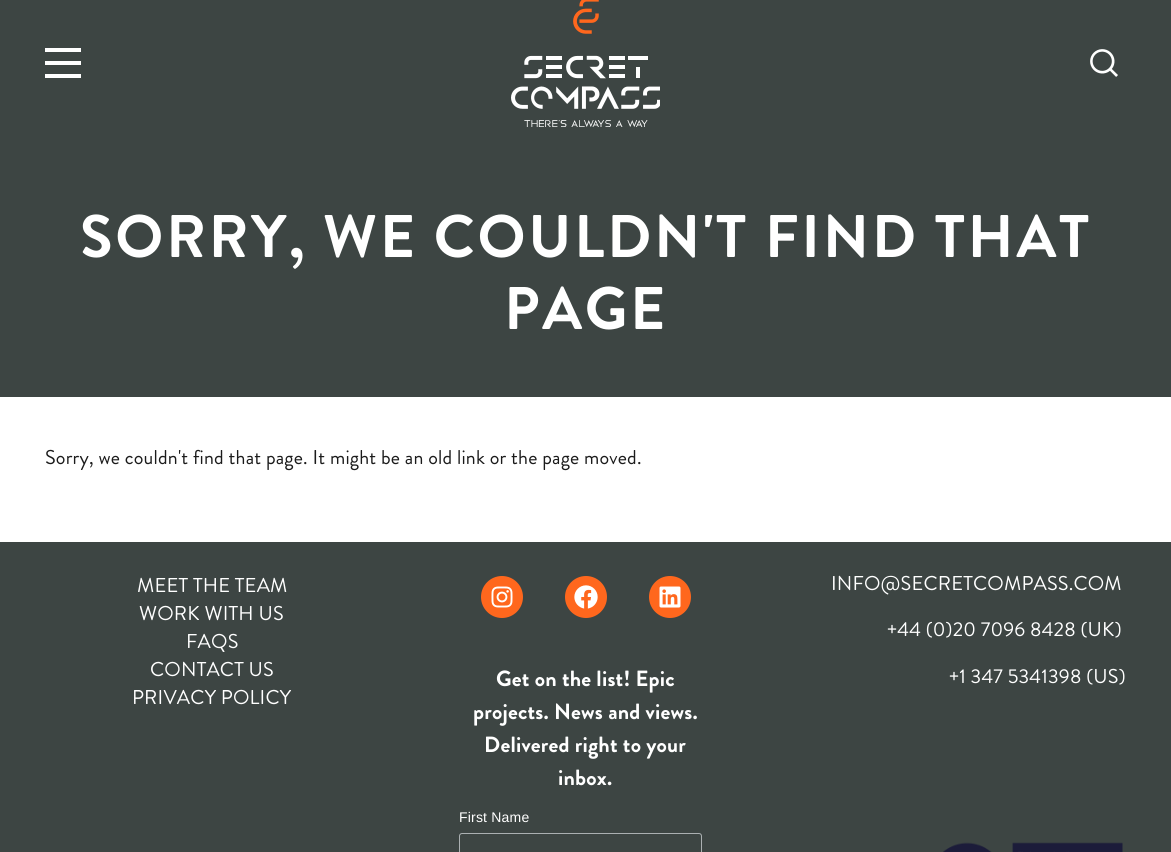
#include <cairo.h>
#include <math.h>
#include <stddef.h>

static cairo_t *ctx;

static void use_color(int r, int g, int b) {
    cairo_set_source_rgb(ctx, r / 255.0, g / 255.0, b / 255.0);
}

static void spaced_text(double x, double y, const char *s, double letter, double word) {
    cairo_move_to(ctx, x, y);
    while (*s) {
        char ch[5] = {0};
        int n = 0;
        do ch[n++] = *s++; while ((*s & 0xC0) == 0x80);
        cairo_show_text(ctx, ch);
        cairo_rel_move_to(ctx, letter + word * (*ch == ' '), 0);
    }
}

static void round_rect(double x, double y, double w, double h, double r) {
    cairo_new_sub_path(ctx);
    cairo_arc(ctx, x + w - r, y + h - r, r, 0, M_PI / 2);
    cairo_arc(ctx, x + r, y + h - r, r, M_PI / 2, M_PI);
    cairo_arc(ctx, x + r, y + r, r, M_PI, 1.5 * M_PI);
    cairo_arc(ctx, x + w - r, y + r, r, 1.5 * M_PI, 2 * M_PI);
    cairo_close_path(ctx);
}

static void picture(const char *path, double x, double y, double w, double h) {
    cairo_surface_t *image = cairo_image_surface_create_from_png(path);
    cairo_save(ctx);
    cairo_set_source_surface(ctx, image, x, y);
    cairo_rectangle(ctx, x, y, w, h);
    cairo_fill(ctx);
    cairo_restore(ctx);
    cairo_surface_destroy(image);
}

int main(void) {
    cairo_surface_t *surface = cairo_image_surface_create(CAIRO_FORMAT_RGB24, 1171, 852);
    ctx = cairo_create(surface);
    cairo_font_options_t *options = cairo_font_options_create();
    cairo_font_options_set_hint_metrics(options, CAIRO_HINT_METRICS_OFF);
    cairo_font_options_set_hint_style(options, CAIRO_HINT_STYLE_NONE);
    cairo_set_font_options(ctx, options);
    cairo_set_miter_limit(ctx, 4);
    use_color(255, 255, 255);
    cairo_paint(ctx);
    use_color(61, 69, 67);
    cairo_rectangle(ctx, 0, 0, 1171, 397);
    cairo_fill(ctx);
    use_color(255, 255, 255);
    cairo_rectangle(ctx, 45, 61, 36, 4);
    cairo_fill(ctx);
    cairo_rectangle(ctx, 45, 48, 36, 4);
    cairo_fill(ctx);
    cairo_rectangle(ctx, 45, 74, 36, 4);
    cairo_fill(ctx);
    picture("img1.png", 511, 0, 149, 127);
    picture("img2.png", 1090, 49, 28, 28);
    cairo_select_font_face(ctx, "Brandon Grotesque", CAIRO_FONT_SLANT_NORMAL, CAIRO_FONT_WEIGHT_BOLD);
    cairo_set_font_size(ctx, 60);
    spaced_text(80, 257, "SORRY, WE COULDN'T FIND THAT", 2.7, 0);
    spaced_text(504, 329, "PAGE", 2.7, 0);
    cairo_select_font_face(ctx, "Brandon Grotesque", CAIRO_FONT_SLANT_NORMAL, CAIRO_FONT_WEIGHT_NORMAL);
    cairo_set_font_size(ctx, 20);
    use_color(27, 27, 27);
    spaced_text(45, 464, "Sorry, we couldn't find that page. It might be an old link or the page moved.", 0.2, 0);
    use_color(61, 69, 67);
    cairo_rectangle(ctx, 0, 542, 1171, 310);
    cairo_fill(ctx);
    use_color(255, 255, 255);
    spaced_text(137, 592, "MEET THE TEAM", 0.2, 0);
    spaced_text(139, 620, "WORK WITH US", 0.2, 0);
    spaced_text(186, 648, "FAQS", 0.2, 0);
    spaced_text(150, 676, "CONTACT US", 0.2, 0);
    spaced_text(132, 704, "PRIVACY POLICY", 0.2, 0);
    spaced_text(831, 590, "INFO@SECRETCOMPASS.COM", 0.2, 0);
    spaced_text(887, 636, "+44 (0)20 7096 8428 (UK)", 0.2, 0);
    spaced_text(949, 683, "+1 347 5341398 (US)", 0.2, 0);
    picture("img3.png", 943, 842, 180, 10);
    use_color(255, 103, 29);
    cairo_arc(ctx, 502, 597, 21, 0, 2 * M_PI);
    cairo_fill(ctx);
    picture("img4.png", 491, 586, 22, 22);
    cairo_arc(ctx, 586, 597, 21, 0, 2 * M_PI);
    cairo_fill(ctx);
    picture("img5.png", 574, 585, 24, 24);
    cairo_arc(ctx, 670, 597, 21, 0, 2 * M_PI);
    cairo_fill(ctx);
    picture("img6.png", 659, 586, 22, 22);
    cairo_select_font_face(ctx, "Brandon Grotesque", CAIRO_FONT_SLANT_NORMAL, CAIRO_FONT_WEIGHT_BOLD);
    cairo_set_font_size(ctx, 22);
    use_color(255, 255, 255);
    spaced_text(496, 686, "Get on the list! Epic", 0.2, 0);
    spaced_text(473, 719, "projects. News and views.", 0.2, 0);
    spaced_text(484, 752, "Delivered right to your", 0.2, 0);
    spaced_text(558, 785, "inbox.", 0.2, 0);
    cairo_select_font_face(ctx, "Liberation Sans", CAIRO_FONT_SLANT_NORMAL, CAIRO_FONT_WEIGHT_NORMAL);
    cairo_set_font_size(ctx, 14);
    spaced_text(459, 822, "First Name", 0.2, 0);
    round_rect(459.5, 833.5, 242, 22, 2.5);
    use_color(171, 176, 178);
    cairo_set_line_width(ctx, 1);
    cairo_stroke(ctx);
    cairo_surface_write_to_png(surface, "result.png");
    cairo_font_options_destroy(options);
    cairo_destroy(ctx);
    cairo_surface_destroy(surface);
    return 0;
}
